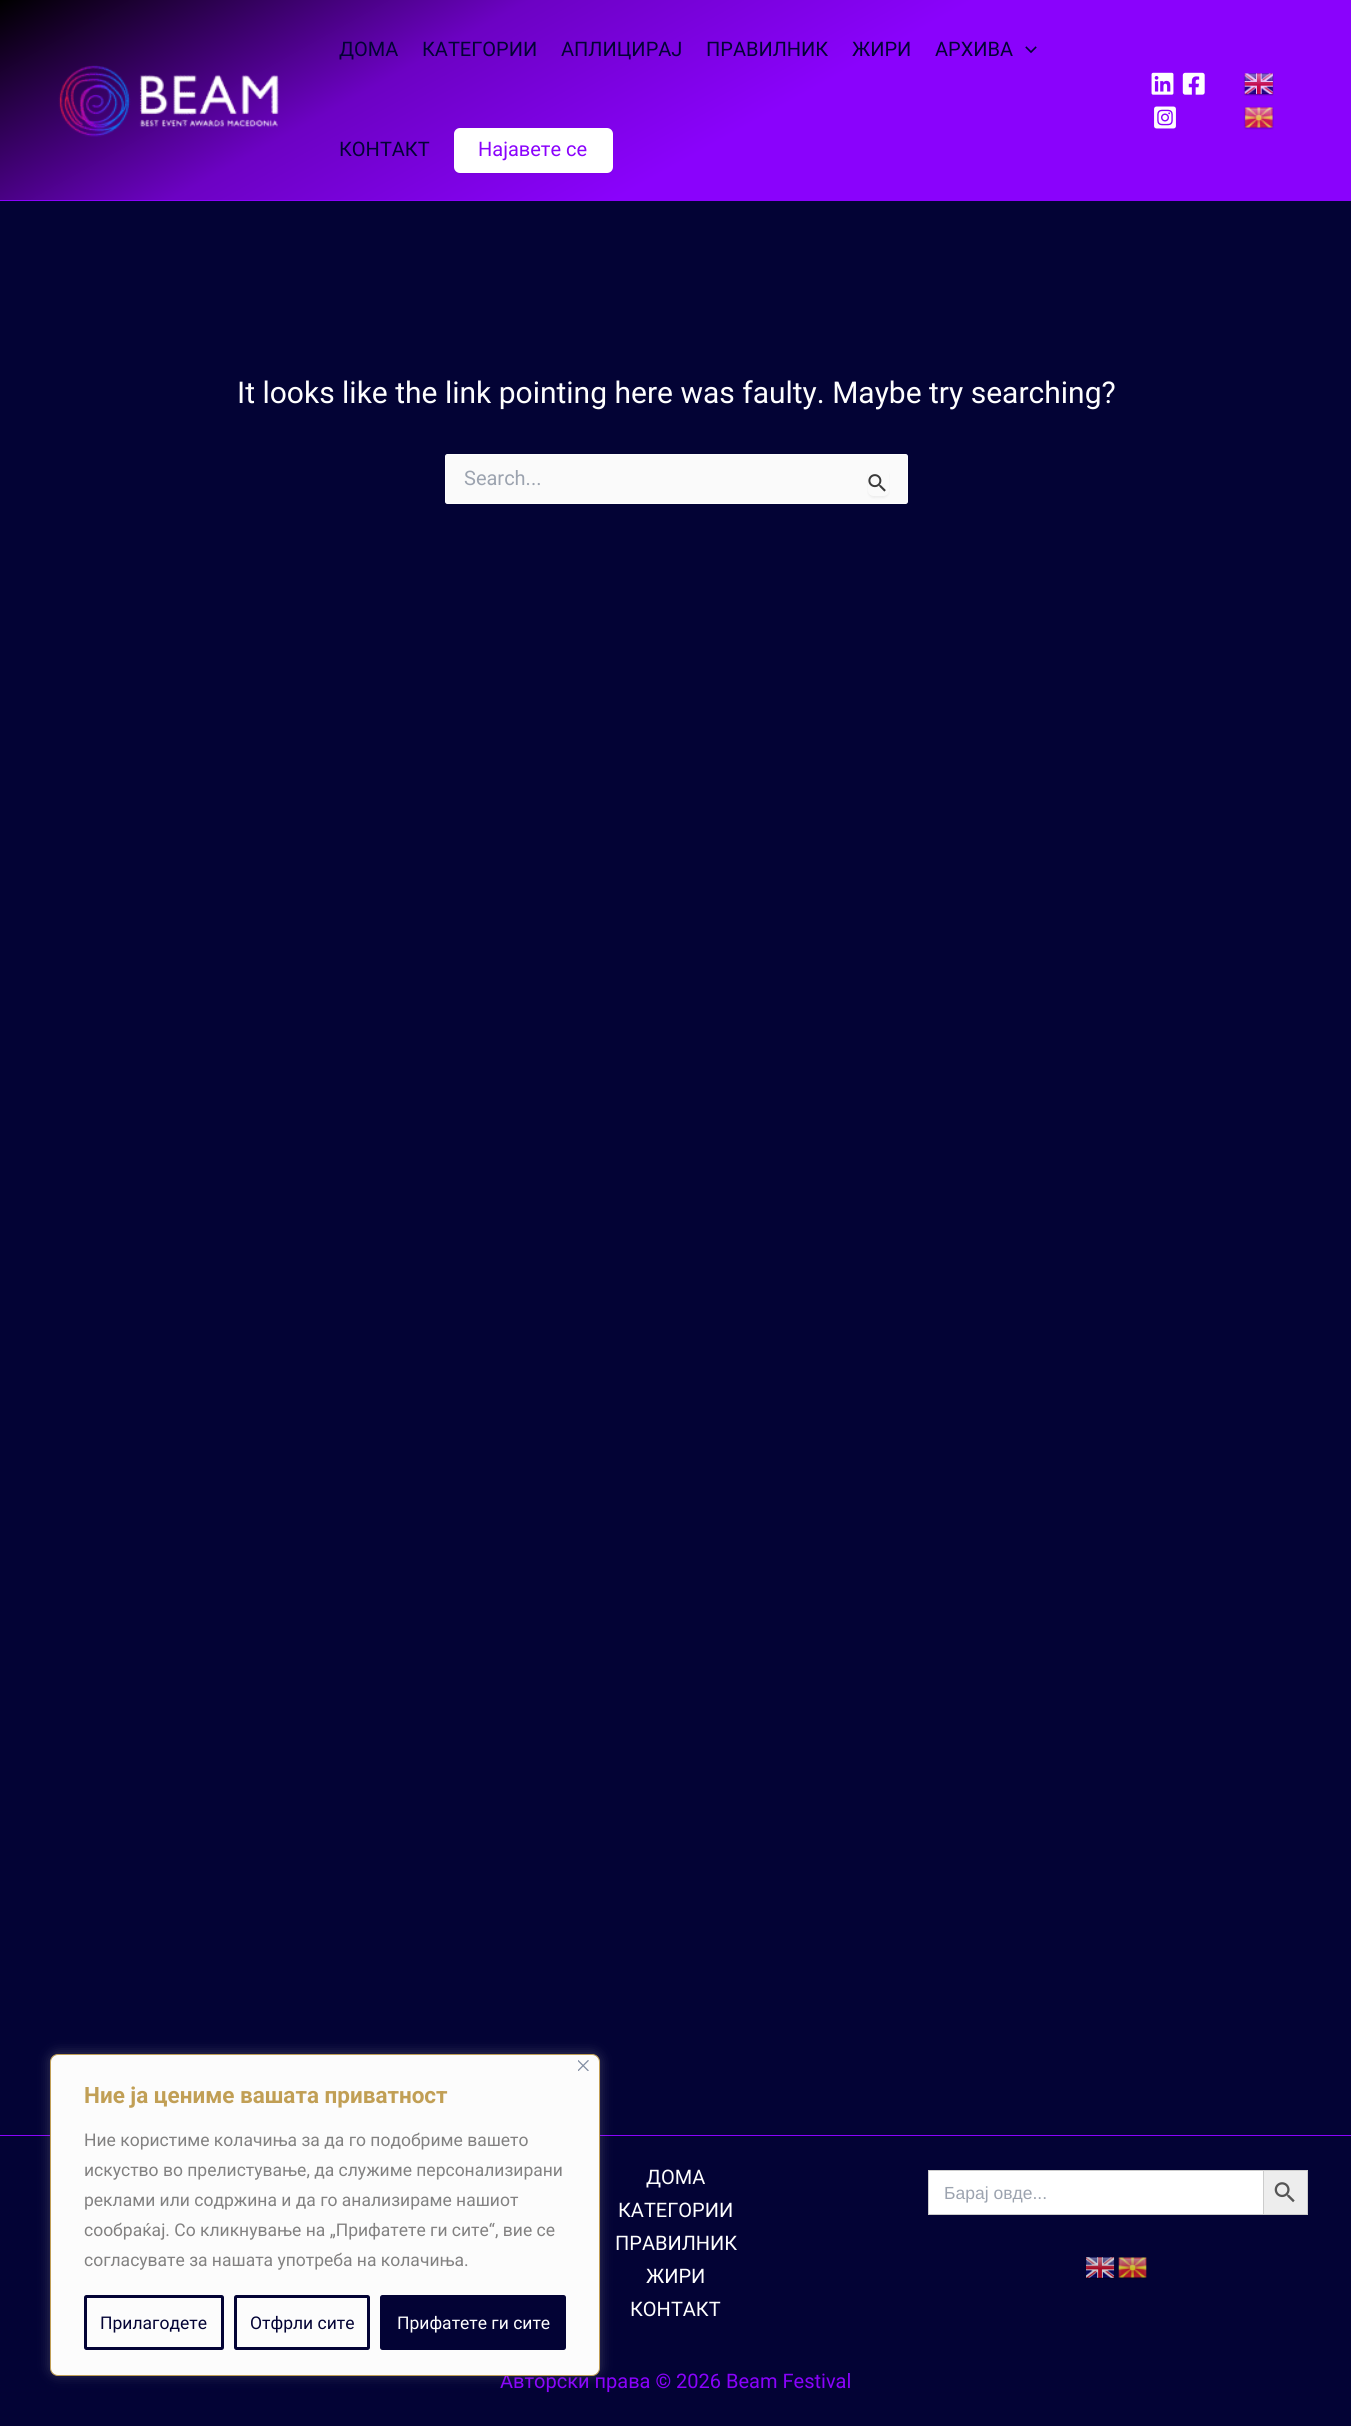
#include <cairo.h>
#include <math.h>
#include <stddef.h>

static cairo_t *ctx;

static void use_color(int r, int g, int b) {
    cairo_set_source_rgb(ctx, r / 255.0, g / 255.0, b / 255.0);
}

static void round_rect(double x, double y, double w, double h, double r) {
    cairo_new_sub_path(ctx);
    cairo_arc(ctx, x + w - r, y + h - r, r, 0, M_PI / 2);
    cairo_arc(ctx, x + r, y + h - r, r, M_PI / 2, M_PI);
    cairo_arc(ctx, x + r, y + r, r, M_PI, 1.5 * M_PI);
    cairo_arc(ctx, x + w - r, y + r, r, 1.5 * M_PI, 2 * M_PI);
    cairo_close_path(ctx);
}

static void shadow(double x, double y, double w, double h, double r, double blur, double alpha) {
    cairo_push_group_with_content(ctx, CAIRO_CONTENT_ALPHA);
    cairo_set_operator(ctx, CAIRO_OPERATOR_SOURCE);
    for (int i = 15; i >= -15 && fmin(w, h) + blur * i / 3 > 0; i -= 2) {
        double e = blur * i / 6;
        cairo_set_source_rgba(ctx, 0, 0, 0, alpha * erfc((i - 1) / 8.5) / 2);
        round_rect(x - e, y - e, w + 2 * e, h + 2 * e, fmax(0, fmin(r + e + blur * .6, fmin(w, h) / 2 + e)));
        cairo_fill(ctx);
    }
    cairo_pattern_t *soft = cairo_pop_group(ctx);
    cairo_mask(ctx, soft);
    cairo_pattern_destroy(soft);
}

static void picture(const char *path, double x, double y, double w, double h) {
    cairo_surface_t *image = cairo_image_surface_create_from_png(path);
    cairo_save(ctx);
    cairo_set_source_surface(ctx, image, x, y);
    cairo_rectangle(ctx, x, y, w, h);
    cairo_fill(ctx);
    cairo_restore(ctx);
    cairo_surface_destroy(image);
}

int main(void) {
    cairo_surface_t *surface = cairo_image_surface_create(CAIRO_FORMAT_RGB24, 1351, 2426);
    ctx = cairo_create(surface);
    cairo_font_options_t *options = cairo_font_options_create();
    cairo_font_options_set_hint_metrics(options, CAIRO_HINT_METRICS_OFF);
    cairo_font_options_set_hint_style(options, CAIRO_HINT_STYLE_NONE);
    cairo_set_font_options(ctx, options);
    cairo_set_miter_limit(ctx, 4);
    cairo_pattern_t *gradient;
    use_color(3, 3, 53);
    cairo_paint(ctx);
    gradient = cairo_pattern_create_linear(474, -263, 877, 463);
    cairo_pattern_add_color_stop_rgba(gradient, 0, 0, 0, 0, 1);
    cairo_pattern_add_color_stop_rgba(gradient, 0.31, 0.424, 0.008, 0.765, 1);
    cairo_pattern_add_color_stop_rgba(gradient, 0.57, 0.541, 0.008, 0.988, 1);
    cairo_set_source(ctx, gradient);
    cairo_pattern_destroy(gradient);
    cairo_rectangle(ctx, 0, 0, 1351, 200);
    cairo_fill(ctx);
    use_color(138, 2, 252);
    cairo_rectangle(ctx, 0, 200, 1351, 1);
    cairo_fill(ctx);
    picture("img1.png", 58, 65, 221, 72);
    cairo_select_font_face(ctx, "Roboto", CAIRO_FONT_SLANT_NORMAL, CAIRO_FONT_WEIGHT_NORMAL);
    cairo_set_font_size(ctx, 20);
    use_color(3, 3, 53);
    cairo_move_to(ctx, 339, 56);
    cairo_show_text(ctx, "ДОМА");
    cairo_move_to(ctx, 422, 56);
    cairo_show_text(ctx, "КАТЕГОРИИ");
    cairo_move_to(ctx, 561, 56);
    cairo_show_text(ctx, "АПЛИЦИРАЈ");
    cairo_move_to(ctx, 706, 56);
    cairo_show_text(ctx, "ПРАВИЛНИК");
    cairo_move_to(ctx, 852, 56);
    cairo_show_text(ctx, "ЖИРИ");
    cairo_move_to(ctx, 935, 56);
    cairo_show_text(ctx, "АРХИВА");
    picture("img2.png", 1025, 46, 12, 8);
    cairo_move_to(ctx, 339, 156);
    cairo_show_text(ctx, "КОНТАКТ");
    use_color(0, 0, 0);
    shadow(454, 129, 159, 45, 6, 1, 0.05);
    use_color(255, 255, 255);
    round_rect(454, 128, 159, 45, 6);
    cairo_fill(ctx);
    use_color(138, 2, 252);
    cairo_move_to(ctx, 478, 156);
    cairo_show_text(ctx, "Најавете се");
    picture("img3.png", 1151, 72, 23, 23);
    picture("img4.png", 1182, 72, 23, 23);
    picture("img5.png", 1154, 106, 22, 23);
    picture("img6.png", 1243, 73, 31, 23);
    picture("img7.png", 1243, 106, 31, 24);
    cairo_set_font_size(ctx, 30);
    use_color(254, 254, 254);
    cairo_move_to(ctx, 237, 403);
    cairo_show_text(ctx, "It looks like the link pointing here was faulty. Maybe try searching?");
    use_color(250, 250, 250);
    round_rect(445.5, 454.5, 462, 49, 2);
    cairo_fill_preserve(ctx);
    use_color(254, 254, 254);
    cairo_set_line_width(ctx, 1);
    cairo_stroke(ctx);
    cairo_set_font_size(ctx, 20);
    use_color(156, 163, 175);
    cairo_move_to(ctx, 464, 485);
    cairo_show_text(ctx, "Search...");
    cairo_save(ctx);
    cairo_set_fill_rule(ctx, CAIRO_FILL_RULE_EVEN_ODD);
    cairo_new_path(ctx);
    cairo_move_to(ctx, 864, 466);
    cairo_line_to(ctx, 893, 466);
    cairo_line_to(ctx, 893, 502);
    cairo_line_to(ctx, 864, 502);
    cairo_close_path(ctx);
    cairo_move_to(ctx, 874, 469);
    cairo_line_to(ctx, 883, 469);
    cairo_curve_to(ctx, 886.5, 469, 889, 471.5, 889, 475);
    cairo_line_to(ctx, 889, 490);
    cairo_curve_to(ctx, 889, 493.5, 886.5, 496, 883, 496);
    cairo_line_to(ctx, 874, 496);
    cairo_curve_to(ctx, 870.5, 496, 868, 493.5, 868, 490);
    cairo_line_to(ctx, 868, 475);
    cairo_curve_to(ctx, 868, 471.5, 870.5, 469, 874, 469);
    cairo_close_path(ctx);
    cairo_clip(ctx);
    use_color(0, 0, 0);
    shadow(868, 470, 21, 28, 6, 1, 0.05);
    cairo_restore(ctx);
    picture("img8.png", 868, 474, 18, 18);
    use_color(138, 2, 252);
    cairo_rectangle(ctx, 0, 2135, 1351, 1);
    cairo_fill(ctx);
    use_color(254, 254, 254);
    cairo_move_to(ctx, 646, 2184);
    cairo_show_text(ctx, "ДОМА");
    cairo_move_to(ctx, 618, 2217);
    cairo_show_text(ctx, "КАТЕГОРИИ");
    cairo_move_to(ctx, 615, 2250);
    cairo_show_text(ctx, "ПРАВИЛНИК");
    cairo_move_to(ctx, 646, 2283);
    cairo_show_text(ctx, "ЖИРИ");
    cairo_move_to(ctx, 630, 2316);
    cairo_show_text(ctx, "КОНТАКТ");
    use_color(255, 255, 255);
    cairo_rectangle(ctx, 929, 2171, 334, 43);
    cairo_fill(ctx);
    use_color(204, 204, 204);
    cairo_rectangle(ctx, 928, 2170, 335, 1);
    cairo_fill(ctx);
    cairo_rectangle(ctx, 928, 2214, 335, 1);
    cairo_fill(ctx);
    cairo_rectangle(ctx, 928, 2170, 1, 45);
    cairo_fill(ctx);
    cairo_select_font_face(ctx, "Liberation Sans", CAIRO_FONT_SLANT_NORMAL, CAIRO_FONT_WEIGHT_NORMAL);
    cairo_set_font_size(ctx, 17.5);
    use_color(156, 163, 175);
    cairo_move_to(ctx, 944, 2199);
    cairo_show_text(ctx, "Барај овде...");
    use_color(237, 237, 237);
    cairo_rectangle(ctx, 1263.5, 2170.5, 44, 44);
    cairo_fill_preserve(ctx);
    use_color(204, 204, 204);
    cairo_stroke(ctx);
    picture("img9.png", 1274, 2182, 21, 21);
    picture("img10.png", 1085, 2257, 30, 22);
    picture("img11.png", 1118, 2257, 29, 22);
    cairo_select_font_face(ctx, "Roboto", CAIRO_FONT_SLANT_NORMAL, CAIRO_FONT_WEIGHT_NORMAL);
    cairo_set_font_size(ctx, 20);
    use_color(138, 2, 252);
    cairo_move_to(ctx, 500, 2388);
    cairo_show_text(ctx, "Авторски права © 2026 Beam Festival");
    use_color(172, 171, 171);
    shadow(50, 2053, 550, 322, 8, 6, 0.3);
    use_color(252, 252, 252);
    round_rect(50.5, 2054.5, 549, 321, 7.5);
    cairo_fill_preserve(ctx);
    use_color(193, 159, 85);
    cairo_stroke(ctx);
    picture("img12.png", 578, 2060, 11, 11);
    cairo_select_font_face(ctx, "Roboto", CAIRO_FONT_SLANT_NORMAL, CAIRO_FONT_WEIGHT_BOLD);
    cairo_set_font_size(ctx, 22.5);
    cairo_move_to(ctx, 84, 2103);
    cairo_show_text(ctx, "Ние ја цениме вашата приватност");
    cairo_select_font_face(ctx, "Roboto", CAIRO_FONT_SLANT_NORMAL, CAIRO_FONT_WEIGHT_NORMAL);
    cairo_set_font_size(ctx, 17.5);
    use_color(130, 129, 129);
    cairo_move_to(ctx, 84, 2146);
    cairo_show_text(ctx, "Ние користиме колачиња за да го подобриме вашето");
    cairo_move_to(ctx, 84, 2176);
    cairo_show_text(ctx, "искуство во прелистување, да служиме персонализирани");
    cairo_move_to(ctx, 84, 2206);
    cairo_show_text(ctx, "реклами или содржина и да го анализираме нашиот");
    cairo_move_to(ctx, 84, 2236);
    cairo_show_text(ctx, "сообраќај. Со кликнување на „Прифатете ги сите“, вие се");
    cairo_move_to(ctx, 84, 2266);
    cairo_show_text(ctx, "согласувате за нашата употреба на колачиња.");
    round_rect(85.5, 2296.5, 137, 52, 1);
    use_color(3, 3, 53);
    cairo_set_line_width(ctx, 3);
    cairo_stroke(ctx);
    cairo_move_to(ctx, 100, 2329);
    cairo_show_text(ctx, "Прилагодете");
    round_rect(235.5, 2296.5, 133, 52, 1);
    cairo_stroke(ctx);
    cairo_move_to(ctx, 250, 2329);
    cairo_show_text(ctx, "Отфрли сите");
    round_rect(381.5, 2296.5, 183, 52, 1);
    cairo_fill_preserve(ctx);
    cairo_stroke(ctx);
    use_color(254, 254, 254);
    cairo_move_to(ctx, 397, 2329);
    cairo_show_text(ctx, "Прифатете ги сите");
    cairo_surface_write_to_png(surface, "result.png");
    cairo_font_options_destroy(options);
    cairo_destroy(ctx);
    cairo_surface_destroy(surface);
    return 0;
}
